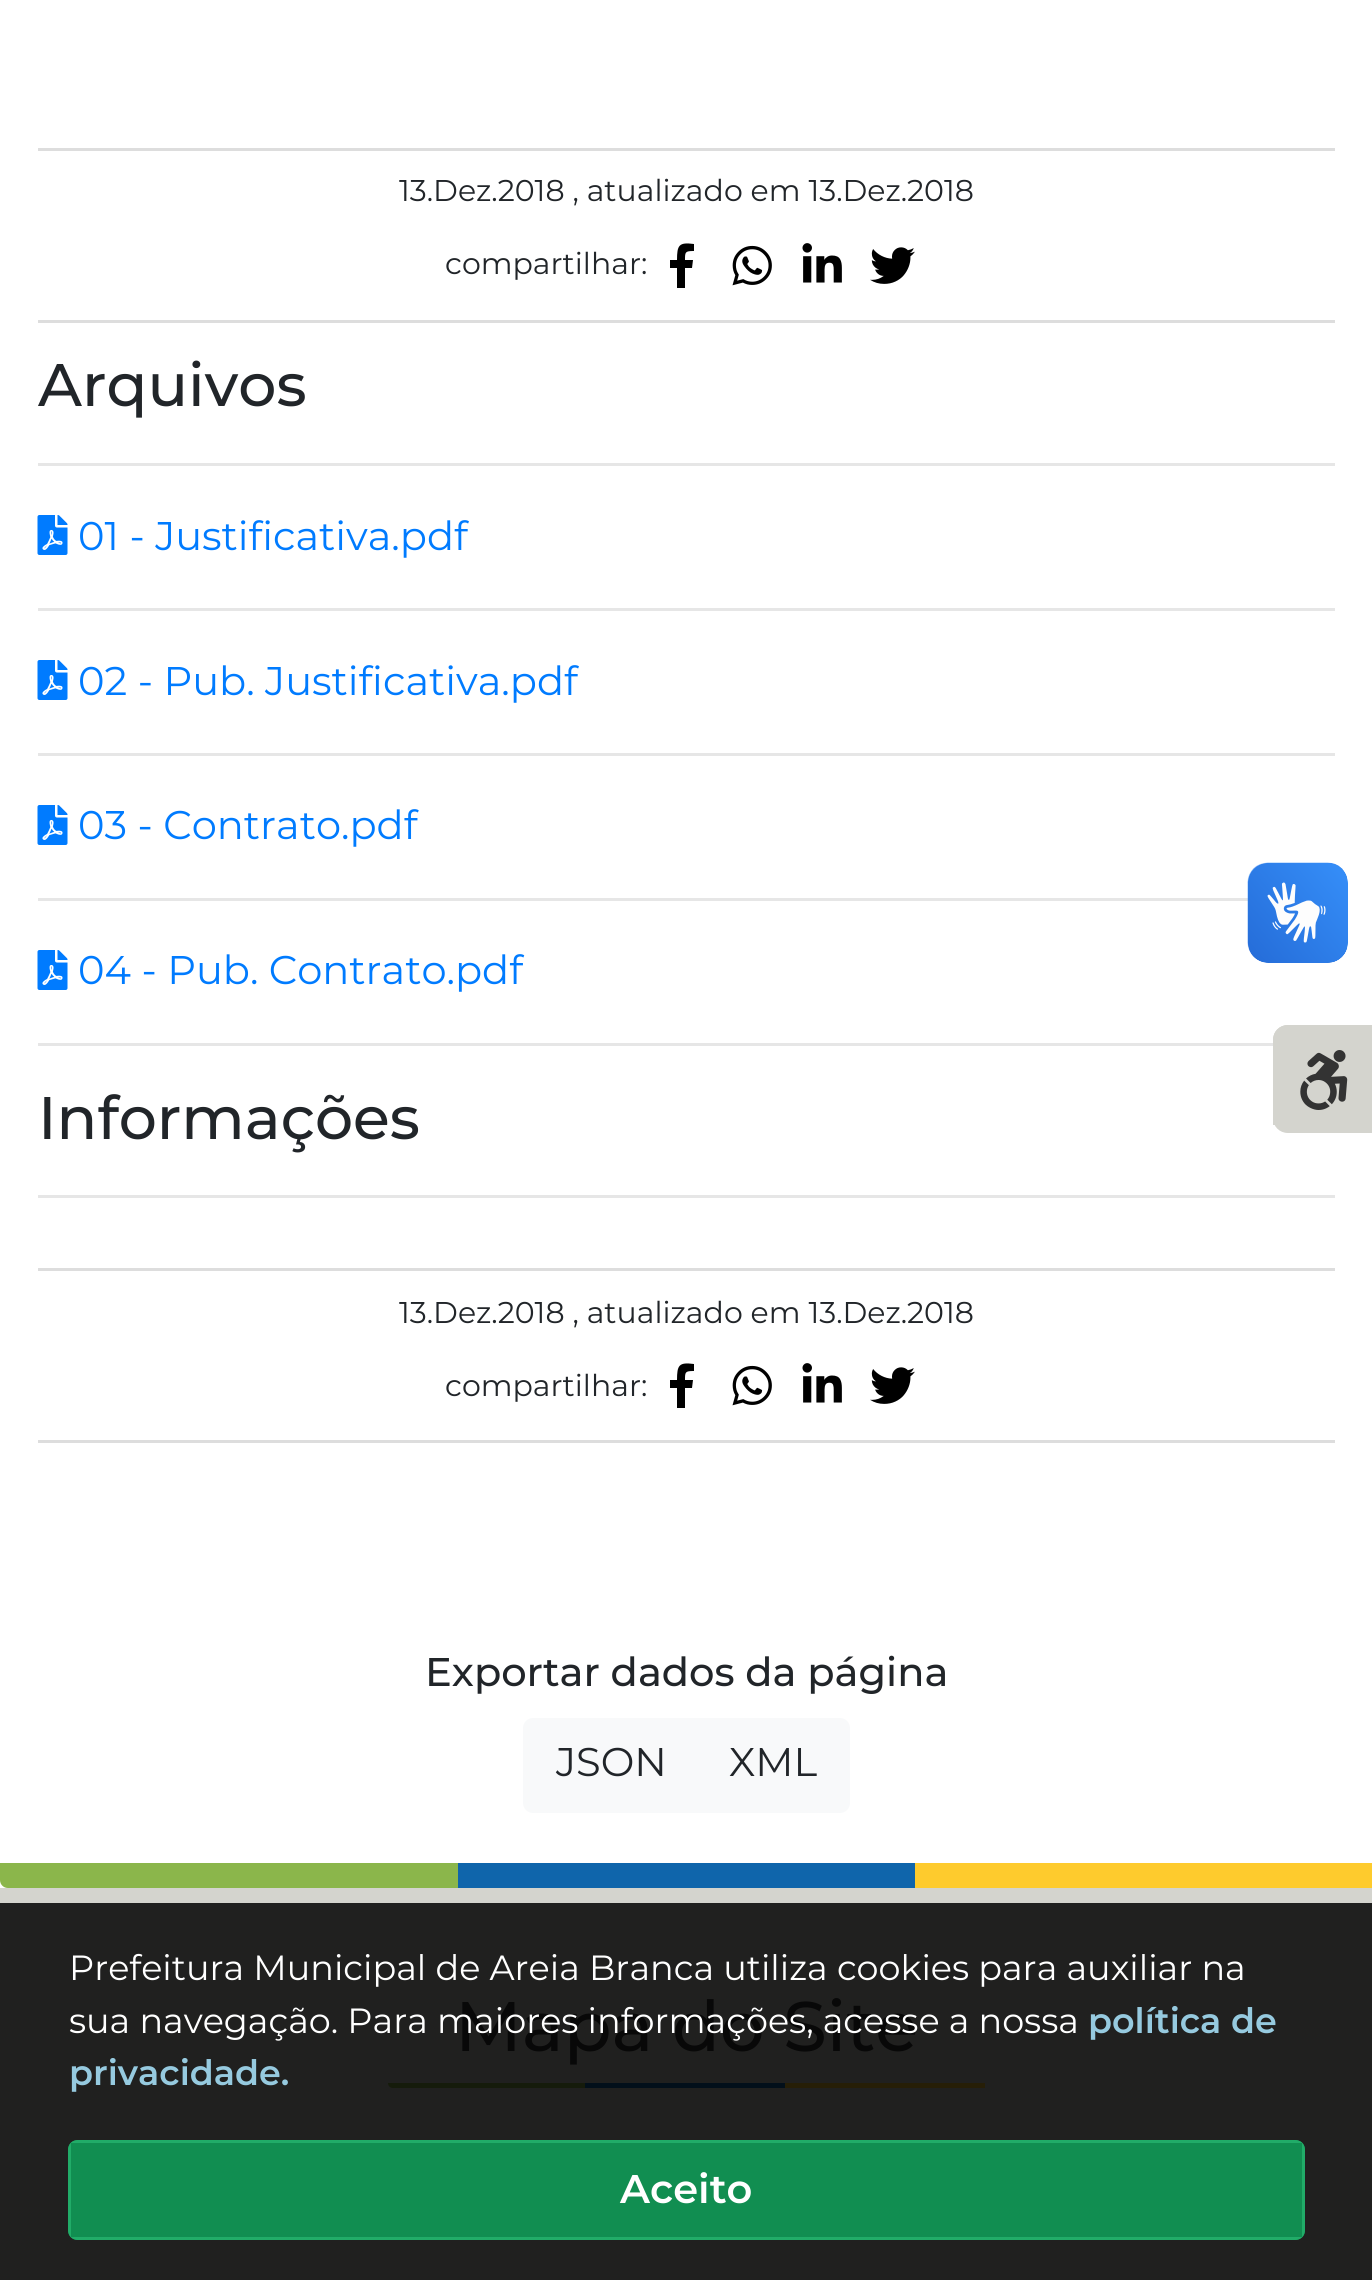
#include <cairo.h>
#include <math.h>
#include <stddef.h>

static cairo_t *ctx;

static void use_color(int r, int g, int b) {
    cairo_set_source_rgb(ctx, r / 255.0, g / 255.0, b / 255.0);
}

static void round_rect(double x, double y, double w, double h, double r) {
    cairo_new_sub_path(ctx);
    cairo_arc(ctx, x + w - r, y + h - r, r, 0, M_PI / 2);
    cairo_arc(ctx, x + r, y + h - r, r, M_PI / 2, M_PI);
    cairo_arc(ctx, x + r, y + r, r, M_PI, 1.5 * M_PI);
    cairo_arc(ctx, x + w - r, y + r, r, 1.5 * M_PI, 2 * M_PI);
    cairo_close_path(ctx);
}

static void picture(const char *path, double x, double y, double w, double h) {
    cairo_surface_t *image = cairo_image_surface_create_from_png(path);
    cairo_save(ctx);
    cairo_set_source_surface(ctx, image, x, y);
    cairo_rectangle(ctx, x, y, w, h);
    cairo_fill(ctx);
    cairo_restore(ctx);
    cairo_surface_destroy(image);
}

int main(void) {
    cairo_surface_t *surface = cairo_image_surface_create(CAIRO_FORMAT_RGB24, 1372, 2280);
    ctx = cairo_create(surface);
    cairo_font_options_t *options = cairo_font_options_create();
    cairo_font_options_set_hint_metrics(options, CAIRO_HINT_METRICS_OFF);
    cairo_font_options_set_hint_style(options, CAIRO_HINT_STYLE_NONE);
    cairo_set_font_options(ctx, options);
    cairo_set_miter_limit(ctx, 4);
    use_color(255, 255, 255);
    cairo_paint(ctx);
    use_color(221, 221, 221);
    cairo_rectangle(ctx, 38, 148, 1297, 3);
    cairo_fill(ctx);
    cairo_rectangle(ctx, 38, 320, 1297, 3);
    cairo_fill(ctx);
    cairo_select_font_face(ctx, "Montserrat", CAIRO_FONT_SLANT_NORMAL, CAIRO_FONT_WEIGHT_NORMAL);
    cairo_set_font_size(ctx, 30);
    use_color(33, 37, 41);
    cairo_move_to(ctx, 399, 201);
    cairo_show_text(ctx, "13.Dez.2018 , atualizado em 13.Dez.2018");
    cairo_move_to(ctx, 445, 274);
    cairo_show_text(ctx, "compartilhar:");
    use_color(0, 0, 0);
    cairo_new_path(ctx);
    cairo_move_to(ctx, 692, 268);
    cairo_line_to(ctx, 685, 268);
    cairo_line_to(ctx, 685, 288);
    cairo_line_to(ctx, 677, 288);
    cairo_line_to(ctx, 677, 268);
    cairo_line_to(ctx, 670, 268);
    cairo_line_to(ctx, 670, 260);
    cairo_line_to(ctx, 677, 260);
    cairo_curve_to(ctx, 677, 245, 679, 242, 694, 244);
    cairo_line_to(ctx, 694, 251);
    cairo_curve_to(ctx, 685, 251, 685, 252, 685, 260);
    cairo_line_to(ctx, 693, 260);
    cairo_close_path(ctx);
    cairo_fill(ctx);
    picture("img1.png", 732, 245, 40, 41);
    picture("img2.png", 802, 243, 40, 40);
    picture("img3.png", 870, 247, 45, 37);
    cairo_select_font_face(ctx, "Montserrat Medium", CAIRO_FONT_SLANT_NORMAL, CAIRO_FONT_WEIGHT_NORMAL);
    cairo_set_font_size(ctx, 60);
    use_color(33, 37, 41);
    cairo_move_to(ctx, 38, 406);
    cairo_show_text(ctx, "Arquivos");
    use_color(230, 230, 230);
    cairo_rectangle(ctx, 38, 463, 1297, 3);
    cairo_fill(ctx);
    picture("img4.png", 37, 515, 31, 40);
    cairo_select_font_face(ctx, "Montserrat", CAIRO_FONT_SLANT_NORMAL, CAIRO_FONT_WEIGHT_NORMAL);
    cairo_set_font_size(ctx, 40);
    use_color(0, 123, 255);
    cairo_move_to(ctx, 78, 550);
    cairo_show_text(ctx, "01 - Justificativa.pdf");
    use_color(230, 230, 230);
    cairo_rectangle(ctx, 38, 608, 1297, 3);
    cairo_fill(ctx);
    picture("img4.png", 37, 660, 31, 40);
    use_color(0, 123, 255);
    cairo_move_to(ctx, 78, 695);
    cairo_show_text(ctx, "02 - Pub. Justificativa.pdf");
    use_color(230, 230, 230);
    cairo_rectangle(ctx, 38, 753, 1297, 3);
    cairo_fill(ctx);
    picture("img4.png", 37, 805, 31, 40);
    use_color(0, 123, 255);
    cairo_move_to(ctx, 78, 839);
    cairo_show_text(ctx, "03 - Contrato.pdf");
    use_color(230, 230, 230);
    cairo_rectangle(ctx, 38, 898, 1210, 3);
    cairo_fill(ctx);
    picture("img4.png", 37, 950, 31, 40);
    use_color(0, 123, 255);
    cairo_move_to(ctx, 78, 984);
    cairo_show_text(ctx, "04 - Pub. Contrato.pdf");
    use_color(230, 230, 230);
    cairo_rectangle(ctx, 38, 1043, 1235, 3);
    cairo_fill(ctx);
    cairo_select_font_face(ctx, "Montserrat Medium", CAIRO_FONT_SLANT_NORMAL, CAIRO_FONT_WEIGHT_NORMAL);
    cairo_set_font_size(ctx, 60);
    use_color(33, 37, 41);
    cairo_move_to(ctx, 38, 1139);
    cairo_show_text(ctx, "Informações");
    use_color(230, 230, 230);
    cairo_rectangle(ctx, 38, 1195, 1297, 3);
    cairo_fill(ctx);
    use_color(221, 221, 221);
    cairo_rectangle(ctx, 38, 1268, 1297, 3);
    cairo_fill(ctx);
    cairo_rectangle(ctx, 38, 1440, 1297, 3);
    cairo_fill(ctx);
    cairo_select_font_face(ctx, "Montserrat", CAIRO_FONT_SLANT_NORMAL, CAIRO_FONT_WEIGHT_NORMAL);
    cairo_set_font_size(ctx, 30);
    use_color(33, 37, 41);
    cairo_move_to(ctx, 399, 1323);
    cairo_show_text(ctx, "13.Dez.2018 , atualizado em 13.Dez.2018");
    cairo_move_to(ctx, 445, 1396);
    cairo_show_text(ctx, "compartilhar:");
    use_color(0, 0, 0);
    cairo_new_path(ctx);
    cairo_move_to(ctx, 692, 1388);
    cairo_line_to(ctx, 685, 1388);
    cairo_line_to(ctx, 685, 1408);
    cairo_line_to(ctx, 677, 1408);
    cairo_line_to(ctx, 677, 1388);
    cairo_line_to(ctx, 670, 1388);
    cairo_line_to(ctx, 670, 1380);
    cairo_line_to(ctx, 677, 1380);
    cairo_curve_to(ctx, 677, 1365, 679, 1362, 694, 1364);
    cairo_line_to(ctx, 694, 1371);
    cairo_curve_to(ctx, 685, 1371, 685, 1372, 685, 1380);
    cairo_line_to(ctx, 693, 1380);
    cairo_close_path(ctx);
    cairo_fill(ctx);
    picture("img1.png", 732, 1365, 40, 41);
    picture("img2.png", 802, 1363, 40, 40);
    picture("img3.png", 870, 1367, 45, 37);
    picture("img5.png", 1247, 862, 101, 101);
    picture("img6.png", 1248, 863, 100, 100);
    use_color(212, 212, 206);
    cairo_new_path(ctx);
    cairo_move_to(ctx, 1288, 1025);
    cairo_line_to(ctx, 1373, 1025);
    cairo_line_to(ctx, 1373, 1133);
    cairo_line_to(ctx, 1288, 1133);
    cairo_curve_to(ctx, 1279.5, 1133, 1273, 1126.5, 1273, 1118);
    cairo_line_to(ctx, 1273, 1040);
    cairo_curve_to(ctx, 1273, 1031.5, 1279.5, 1025, 1288, 1025);
    cairo_close_path(ctx);
    cairo_fill(ctx);
    cairo_new_path(ctx);
    cairo_move_to(ctx, 1288, 1025);
    cairo_line_to(ctx, 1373, 1025);
    cairo_line_to(ctx, 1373, 1125);
    cairo_line_to(ctx, 1273, 1125);
    cairo_line_to(ctx, 1273, 1040);
    cairo_curve_to(ctx, 1273, 1031.5, 1279.5, 1025, 1288, 1025);
    cairo_close_path(ctx);
    cairo_fill(ctx);
    picture("img7.png", 1300, 1050, 48, 60);
    cairo_select_font_face(ctx, "Montserrat Medium", CAIRO_FONT_SLANT_NORMAL, CAIRO_FONT_WEIGHT_NORMAL);
    cairo_set_font_size(ctx, 40);
    use_color(33, 37, 41);
    cairo_move_to(ctx, 425, 1686);
    cairo_show_text(ctx, "Exportar dados da página");
    use_color(248, 249, 250);
    cairo_new_path(ctx);
    cairo_move_to(ctx, 533, 1718);
    cairo_line_to(ctx, 700, 1718);
    cairo_line_to(ctx, 700, 1813);
    cairo_line_to(ctx, 533, 1813);
    cairo_curve_to(ctx, 527.5, 1813, 523, 1808.5, 523, 1803);
    cairo_line_to(ctx, 523, 1728);
    cairo_curve_to(ctx, 523, 1722.5, 527.5, 1718, 533, 1718);
    cairo_close_path(ctx);
    cairo_fill(ctx);
    cairo_select_font_face(ctx, "Montserrat", CAIRO_FONT_SLANT_NORMAL, CAIRO_FONT_WEIGHT_NORMAL);
    use_color(33, 37, 41);
    cairo_move_to(ctx, 556, 1776);
    cairo_show_text(ctx, "JSON");
    use_color(248, 249, 250);
    cairo_new_path(ctx);
    cairo_move_to(ctx, 698, 1718);
    cairo_line_to(ctx, 840, 1718);
    cairo_curve_to(ctx, 845.5, 1718, 850, 1722.5, 850, 1728);
    cairo_line_to(ctx, 850, 1803);
    cairo_curve_to(ctx, 850, 1808.5, 845.5, 1813, 840, 1813);
    cairo_line_to(ctx, 698, 1813);
    cairo_close_path(ctx);
    cairo_fill(ctx);
    use_color(33, 37, 41);
    cairo_move_to(ctx, 729, 1776);
    cairo_show_text(ctx, "XML");
    use_color(139, 182, 75);
    cairo_new_path(ctx);
    cairo_move_to(ctx, 0, 1863);
    cairo_line_to(ctx, 458, 1863);
    cairo_line_to(ctx, 458, 1888);
    cairo_line_to(ctx, 8, 1888);
    cairo_curve_to(ctx, 3.5, 1888, 0, 1884.5, 0, 1880);
    cairo_close_path(ctx);
    cairo_fill(ctx);
    use_color(15, 101, 171);
    cairo_rectangle(ctx, 458, 1863, 457, 25);
    cairo_fill(ctx);
    use_color(254, 203, 45);
    cairo_rectangle(ctx, 915, 1863, 457, 25);
    cairo_fill(ctx);
    use_color(32, 32, 31);
    cairo_rectangle(ctx, 0, 1903, 1372, 377);
    cairo_fill(ctx);
    cairo_set_font_size(ctx, 35);
    use_color(255, 255, 255);
    cairo_move_to(ctx, 69, 1980);
    cairo_show_text(ctx, "Prefeitura Municipal de Areia Branca utiliza cookies para auxiliar na");
    cairo_select_font_face(ctx, "Montserrat Medium", CAIRO_FONT_SLANT_NORMAL, CAIRO_FONT_WEIGHT_NORMAL);
    cairo_set_font_size(ctx, 70);
    use_color(8, 8, 8);
    cairo_move_to(ctx, 455, 2051);
    cairo_show_text(ctx, "Mapa do Site");
    cairo_select_font_face(ctx, "Montserrat", CAIRO_FONT_SLANT_NORMAL, CAIRO_FONT_WEIGHT_NORMAL);
    cairo_set_font_size(ctx, 35);
    use_color(255, 255, 255);
    cairo_move_to(ctx, 69, 2033);
    cairo_show_text(ctx, "sua navegação. Para maiores informações, acesse a nossa");
    cairo_select_font_face(ctx, "Montserrat SemiBold", CAIRO_FONT_SLANT_NORMAL, CAIRO_FONT_WEIGHT_NORMAL);
    use_color(150, 202, 223);
    cairo_move_to(ctx, 1088, 2033);
    cairo_show_text(ctx, "política de");
    cairo_move_to(ctx, 69, 2085);
    cairo_show_text(ctx, "privacidade.");
    use_color(17, 142, 81);
    round_rect(68, 2140, 1237, 100, 10);
    cairo_fill(ctx);
    cairo_set_font_size(ctx, 40);
    use_color(255, 255, 255);
    cairo_move_to(ctx, 620, 2203);
    cairo_show_text(ctx, "Aceito");
    use_color(33, 172, 104);
    cairo_set_fill_rule(ctx, CAIRO_FILL_RULE_EVEN_ODD);
    cairo_new_path(ctx);
    cairo_move_to(ctx, 78, 2140);
    cairo_curve_to(ctx, 72, 2140, 68, 2144, 68, 2150);
    cairo_line_to(ctx, 68, 2230);
    cairo_curve_to(ctx, 68, 2236, 72, 2240, 78, 2240);
    cairo_line_to(ctx, 1295, 2240);
    cairo_curve_to(ctx, 1301, 2240, 1305, 2236, 1305, 2230);
    cairo_line_to(ctx, 1305, 2150);
    cairo_curve_to(ctx, 1305, 2144, 1301, 2140, 1295, 2140);
    cairo_close_path(ctx);
    cairo_move_to(ctx, 71, 2143);
    cairo_line_to(ctx, 71, 2237);
    cairo_line_to(ctx, 1302, 2237);
    cairo_line_to(ctx, 1302, 2143);
    cairo_close_path(ctx);
    cairo_fill(ctx);
    use_color(212, 212, 206);
    cairo_rectangle(ctx, 0, 1888, 1372, 15);
    cairo_fill(ctx);
    use_color(21, 27, 11);
    cairo_new_path(ctx);
    cairo_move_to(ctx, 388, 2083);
    cairo_line_to(ctx, 585, 2083);
    cairo_line_to(ctx, 585, 2088);
    cairo_line_to(ctx, 393, 2088);
    cairo_curve_to(ctx, 390, 2088, 388, 2086, 388, 2083);
    cairo_close_path(ctx);
    cairo_fill(ctx);
    use_color(2, 15, 26);
    cairo_rectangle(ctx, 585, 2083, 200, 5);
    cairo_fill(ctx);
    use_color(38, 30, 7);
    cairo_rectangle(ctx, 785, 2083, 200, 5);
    cairo_fill(ctx);
    cairo_surface_write_to_png(surface, "result.png");
    cairo_font_options_destroy(options);
    cairo_destroy(ctx);
    cairo_surface_destroy(surface);
    return 0;
}
